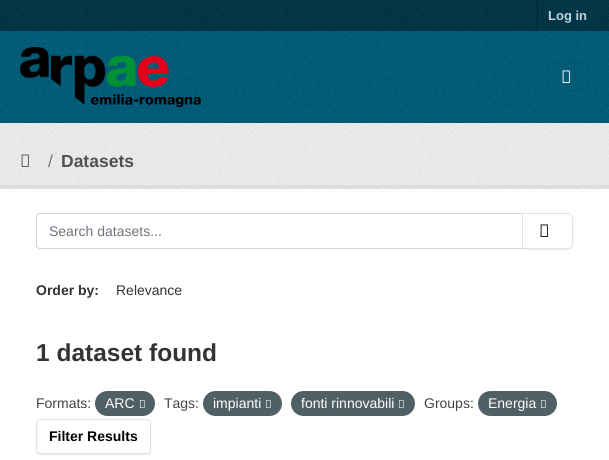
#include <cairo.h>
#include <math.h>
#include <stddef.h>

static cairo_t *ctx;

static void use_color(int r, int g, int b) {
    cairo_set_source_rgb(ctx, r / 255.0, g / 255.0, b / 255.0);
}

static void round_rect(double x, double y, double w, double h, double r) {
    cairo_new_sub_path(ctx);
    cairo_arc(ctx, x + w - r, y + h - r, r, 0, M_PI / 2);
    cairo_arc(ctx, x + r, y + h - r, r, M_PI / 2, M_PI);
    cairo_arc(ctx, x + r, y + r, r, M_PI, 1.5 * M_PI);
    cairo_arc(ctx, x + w - r, y + r, r, 1.5 * M_PI, 2 * M_PI);
    cairo_close_path(ctx);
}

static void shadow(double x, double y, double w, double h, double r, double blur, double alpha) {
    cairo_push_group_with_content(ctx, CAIRO_CONTENT_ALPHA);
    cairo_set_operator(ctx, CAIRO_OPERATOR_SOURCE);
    for (int i = 15; i >= -15 && fmin(w, h) + blur * i / 3 > 0; i -= 2) {
        double e = blur * i / 6;
        cairo_set_source_rgba(ctx, 0, 0, 0, alpha * erfc((i - 1) / 8.5) / 2);
        round_rect(x - e, y - e, w + 2 * e, h + 2 * e, fmax(0, fmin(r + e + blur * .6, fmin(w, h) / 2 + e)));
        cairo_fill(ctx);
    }
    cairo_pattern_t *soft = cairo_pop_group(ctx);
    cairo_mask(ctx, soft);
    cairo_pattern_destroy(soft);
}

static void picture(const char *path, double x, double y, double w, double h) {
    cairo_surface_t *image = cairo_image_surface_create_from_png(path);
    cairo_save(ctx);
    cairo_set_source_surface(ctx, image, x, y);
    cairo_rectangle(ctx, x, y, w, h);
    cairo_fill(ctx);
    cairo_restore(ctx);
    cairo_surface_destroy(image);
}

int main(void) {
    cairo_surface_t *surface = cairo_image_surface_create(CAIRO_FORMAT_RGB24, 609, 460);
    ctx = cairo_create(surface);
    cairo_font_options_t *options = cairo_font_options_create();
    cairo_font_options_set_hint_metrics(options, CAIRO_HINT_METRICS_OFF);
    cairo_font_options_set_hint_style(options, CAIRO_HINT_STYLE_NONE);
    cairo_set_font_options(ctx, options);
    cairo_set_miter_limit(ctx, 4);
    use_color(0, 54, 71);
    cairo_paint(ctx);
    picture("img1.png", 0, 0, 609, 31);
    use_color(0, 35, 46);
    cairo_rectangle(ctx, 537, 0, 1, 31);
    cairo_fill(ctx);
    cairo_select_font_face(ctx, "Liberation Sans", CAIRO_FONT_SLANT_NORMAL, CAIRO_FONT_WEIGHT_BOLD);
    cairo_set_font_size(ctx, 13);
    use_color(191, 215, 222);
    cairo_move_to(ctx, 548, 20);
    cairo_show_text(ctx, "Log in");
    use_color(0, 93, 122);
    cairo_rectangle(ctx, 0, 31, 609, 92);
    cairo_fill(ctx);
    picture("img2.png", 0, 31, 609, 92);
    picture("img3.png", 20, 47, 181, 60);
    round_rect(548.5, 63.5, 40, 27, 3.5);
    cairo_set_source_rgba(ctx, 0, 0, 0, 0.1);
    cairo_set_line_width(ctx, 1);
    cairo_stroke(ctx);
    picture("img4.png", 562, 70, 8, 13);
    use_color(238, 238, 238);
    cairo_rectangle(ctx, 0, 123, 609, 66);
    cairo_fill(ctx);
    picture("img5.png", 0, 123, 609, 66);
    picture("img6.png", 21, 154, 8, 13);
    cairo_select_font_face(ctx, "Liberation Sans", CAIRO_FONT_SLANT_NORMAL, CAIRO_FONT_WEIGHT_NORMAL);
    cairo_set_font_size(ctx, 17.5);
    use_color(108, 117, 125);
    cairo_move_to(ctx, 48, 167);
    cairo_show_text(ctx, "/");
    cairo_select_font_face(ctx, "Liberation Sans", CAIRO_FONT_SLANT_NORMAL, CAIRO_FONT_WEIGHT_BOLD);
    use_color(80, 80, 80);
    cairo_move_to(ctx, 61, 167);
    cairo_show_text(ctx, "Datasets");
    cairo_rectangle(ctx, -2, 187, 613, 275);
    cairo_set_source_rgba(ctx, 0, 0, 0, 0.05);
    cairo_set_line_width(ctx, 4);
    cairo_stroke(ctx);
    use_color(255, 255, 255);
    cairo_rectangle(ctx, 0, 189, 609, 271);
    cairo_fill(ctx);
    cairo_new_path(ctx);
    cairo_move_to(ctx, 40, 213.5);
    cairo_line_to(ctx, 522.5, 213.5);
    cairo_line_to(ctx, 522.5, 248.5);
    cairo_line_to(ctx, 40, 248.5);
    cairo_curve_to(ctx, 38, 248.5, 36.5, 247, 36.5, 245);
    cairo_line_to(ctx, 36.5, 217);
    cairo_curve_to(ctx, 36.5, 215, 38, 213.5, 40, 213.5);
    cairo_close_path(ctx);
    use_color(206, 212, 218);
    cairo_set_line_width(ctx, 1);
    cairo_stroke(ctx);
    cairo_select_font_face(ctx, "Liberation Sans", CAIRO_FONT_SLANT_NORMAL, CAIRO_FONT_WEIGHT_NORMAL);
    cairo_set_font_size(ctx, 14);
    use_color(108, 117, 125);
    cairo_move_to(ctx, 49, 236);
    cairo_show_text(ctx, "Search datasets...");
    use_color(0, 0, 0);
    shadow(522, 214, 51, 36, 5, 0.5, 0.07);
    use_color(255, 255, 255);
    cairo_new_path(ctx);
    cairo_move_to(ctx, 522.5, 213.5);
    cairo_line_to(ctx, 568, 213.5);
    cairo_curve_to(ctx, 570.5, 213.5, 572.5, 215.5, 572.5, 218);
    cairo_line_to(ctx, 572.5, 244);
    cairo_curve_to(ctx, 572.5, 246.5, 570.5, 248.5, 568, 248.5);
    cairo_line_to(ctx, 522.5, 248.5);
    cairo_close_path(ctx);
    cairo_fill_preserve(ctx);
    use_color(222, 226, 230);
    cairo_stroke(ctx);
    picture("img7.png", 540, 224, 8, 13);
    cairo_select_font_face(ctx, "Liberation Sans", CAIRO_FONT_SLANT_NORMAL, CAIRO_FONT_WEIGHT_BOLD);
    use_color(51, 51, 51);
    cairo_move_to(ctx, 36, 295);
    cairo_show_text(ctx, "Order by:");
    cairo_select_font_face(ctx, "Liberation Sans", CAIRO_FONT_SLANT_NORMAL, CAIRO_FONT_WEIGHT_NORMAL);
    cairo_move_to(ctx, 116, 295);
    cairo_show_text(ctx, "Relevance");
    cairo_select_font_face(ctx, "Liberation Sans", CAIRO_FONT_SLANT_NORMAL, CAIRO_FONT_WEIGHT_BOLD);
    cairo_set_font_size(ctx, 24.5);
    cairo_move_to(ctx, 36, 361);
    cairo_show_text(ctx, "1 dataset found");
    cairo_select_font_face(ctx, "Liberation Sans", CAIRO_FONT_SLANT_NORMAL, CAIRO_FONT_WEIGHT_NORMAL);
    cairo_set_font_size(ctx, 14);
    use_color(68, 68, 68);
    cairo_move_to(ctx, 36, 408);
    cairo_show_text(ctx, "Formats:");
    use_color(78, 95, 101);
    round_rect(95, 391, 60, 25, 12.5);
    cairo_fill(ctx);
    use_color(255, 255, 255);
    cairo_move_to(ctx, 105, 408);
    cairo_show_text(ctx, "ARC");
    picture("img8.png", 140, 400, 5, 8);
    use_color(68, 68, 68);
    cairo_move_to(ctx, 164, 408);
    cairo_show_text(ctx, "Tags:");
    use_color(78, 95, 101);
    round_rect(203, 391, 79, 25, 12.5);
    cairo_fill(ctx);
    use_color(255, 255, 255);
    cairo_move_to(ctx, 213, 408);
    cairo_show_text(ctx, "impianti");
    picture("img8.png", 266, 400, 5, 8);
    use_color(78, 95, 101);
    round_rect(291, 391, 124, 25, 12.5);
    cairo_fill(ctx);
    use_color(255, 255, 255);
    cairo_move_to(ctx, 301, 408);
    cairo_show_text(ctx, "fonti rinnovabili");
    picture("img8.png", 399, 400, 5, 8);
    use_color(68, 68, 68);
    cairo_move_to(ctx, 424, 408);
    cairo_show_text(ctx, "Groups:");
    use_color(78, 95, 101);
    round_rect(478, 391, 79, 25, 12.5);
    cairo_fill(ctx);
    use_color(255, 255, 255);
    cairo_move_to(ctx, 488, 408);
    cairo_show_text(ctx, "Energia");
    picture("img8.png", 541, 400, 5, 8);
    use_color(0, 0, 0);
    shadow(36, 420, 115, 35, 4, 0.5, 0.07);
    use_color(255, 255, 255);
    round_rect(36.5, 419.5, 114, 34, 3.5);
    cairo_fill_preserve(ctx);
    use_color(222, 226, 230);
    cairo_stroke(ctx);
    cairo_select_font_face(ctx, "Liberation Sans", CAIRO_FONT_SLANT_NORMAL, CAIRO_FONT_WEIGHT_BOLD);
    use_color(0, 0, 0);
    cairo_move_to(ctx, 49, 441);
    cairo_show_text(ctx, "Filter Results");
    cairo_surface_write_to_png(surface, "result.png");
    cairo_font_options_destroy(options);
    cairo_destroy(ctx);
    cairo_surface_destroy(surface);
    return 0;
}
